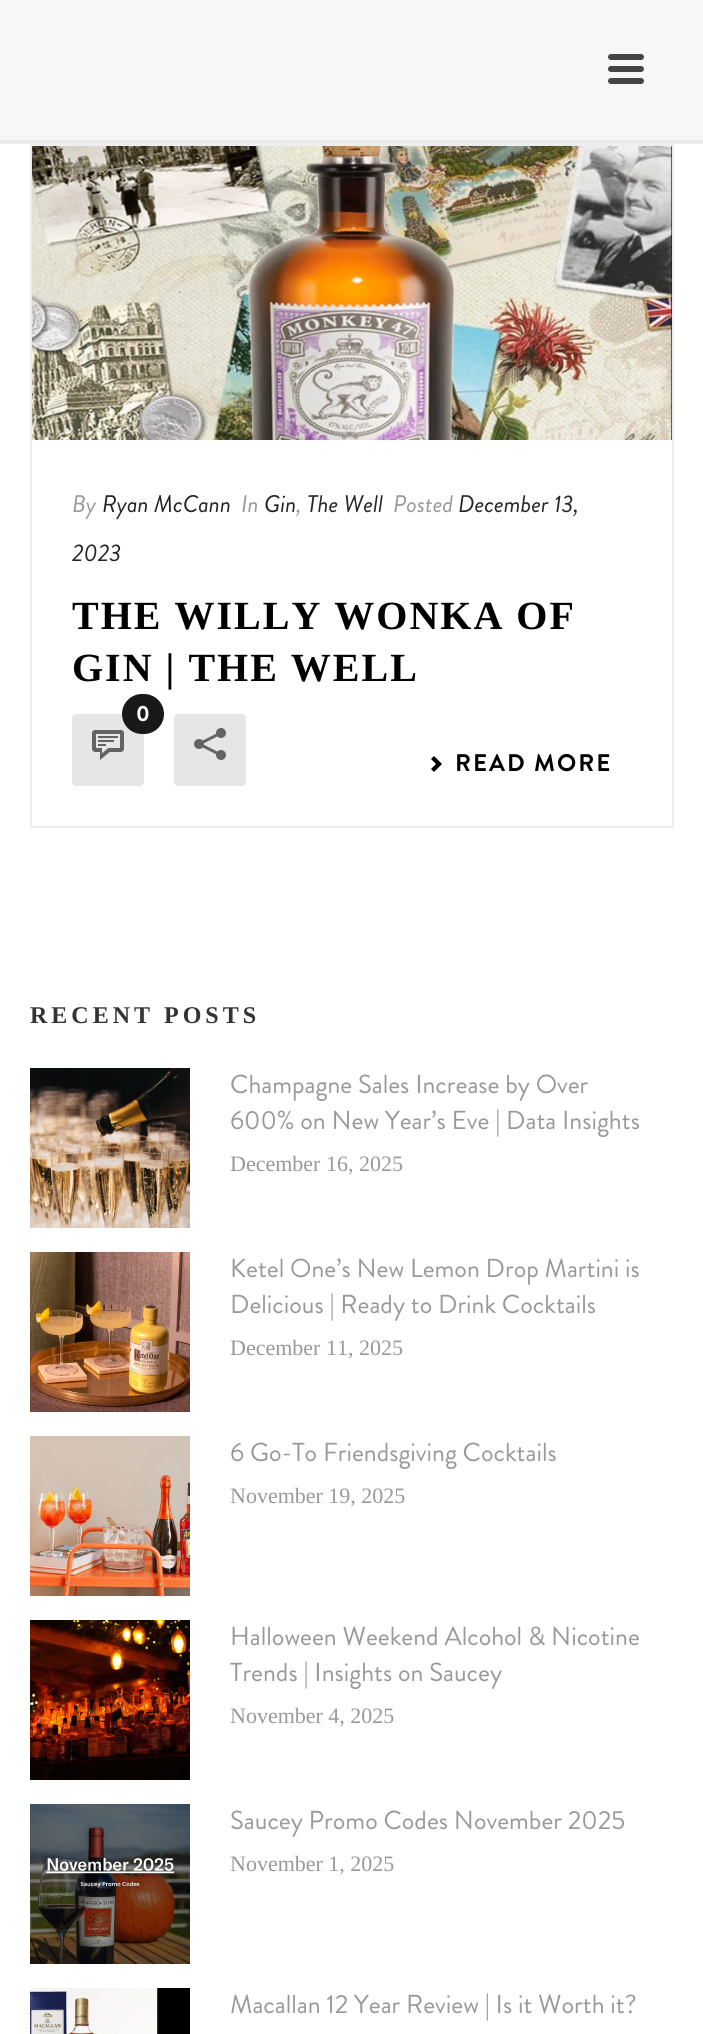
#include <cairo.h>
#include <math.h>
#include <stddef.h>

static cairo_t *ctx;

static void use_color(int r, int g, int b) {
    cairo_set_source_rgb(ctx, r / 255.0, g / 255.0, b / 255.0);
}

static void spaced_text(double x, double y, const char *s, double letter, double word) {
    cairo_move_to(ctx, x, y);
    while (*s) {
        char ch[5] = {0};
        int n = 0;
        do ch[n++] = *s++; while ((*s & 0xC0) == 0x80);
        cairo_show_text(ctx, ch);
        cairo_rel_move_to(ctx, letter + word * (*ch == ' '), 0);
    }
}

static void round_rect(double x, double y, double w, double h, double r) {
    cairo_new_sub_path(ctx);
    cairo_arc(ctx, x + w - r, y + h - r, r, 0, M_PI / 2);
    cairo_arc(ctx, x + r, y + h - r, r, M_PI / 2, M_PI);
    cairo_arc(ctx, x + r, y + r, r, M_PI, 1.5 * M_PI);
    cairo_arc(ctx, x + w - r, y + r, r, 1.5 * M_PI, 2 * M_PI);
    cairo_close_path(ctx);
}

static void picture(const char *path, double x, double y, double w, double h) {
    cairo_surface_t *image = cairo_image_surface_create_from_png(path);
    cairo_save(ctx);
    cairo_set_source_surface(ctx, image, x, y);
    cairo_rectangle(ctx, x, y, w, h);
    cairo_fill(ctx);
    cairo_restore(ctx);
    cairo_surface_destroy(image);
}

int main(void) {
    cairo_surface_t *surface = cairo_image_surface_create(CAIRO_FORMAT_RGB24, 703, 2034);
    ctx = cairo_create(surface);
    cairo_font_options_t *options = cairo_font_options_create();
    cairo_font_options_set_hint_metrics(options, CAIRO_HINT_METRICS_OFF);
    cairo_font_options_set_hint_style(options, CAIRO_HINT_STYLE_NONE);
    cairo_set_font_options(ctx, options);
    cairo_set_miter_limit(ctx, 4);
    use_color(255, 255, 255);
    cairo_paint(ctx);
    use_color(247, 247, 247);
    cairo_rectangle(ctx, 0, 0, 703, 140);
    cairo_fill(ctx);
    use_color(237, 237, 237);
    cairo_rectangle(ctx, 0, 142, 703, 2);
    cairo_fill(ctx);
    use_color(233, 233, 233);
    cairo_rectangle(ctx, 0, 140, 703, 2);
    cairo_fill(ctx);
    use_color(68, 68, 68);
    round_rect(608, 54, 36, 6, 3);
    cairo_fill(ctx);
    round_rect(608, 66, 36, 6, 3);
    cairo_fill(ctx);
    round_rect(608, 78, 36, 6, 3);
    cairo_fill(ctx);
    cairo_rectangle(ctx, 31, 145, 642, 682);
    use_color(238, 238, 238);
    cairo_stroke(ctx);
    picture("img1.png", 32, 146, 640, 294);
    cairo_select_font_face(ctx, "Brandon Grotesque", CAIRO_FONT_SLANT_ITALIC, CAIRO_FONT_WEIGHT_NORMAL);
    cairo_set_font_size(ctx, 24);
    use_color(153, 153, 153);
    cairo_move_to(ctx, 72, 512);
    cairo_show_text(ctx, "By");
    use_color(37, 37, 37);
    cairo_move_to(ctx, 102, 512);
    cairo_show_text(ctx, "Ryan McCann");
    use_color(153, 153, 153);
    cairo_move_to(ctx, 241, 512);
    cairo_show_text(ctx, "In");
    use_color(37, 37, 37);
    cairo_move_to(ctx, 264, 512);
    cairo_show_text(ctx, "Gin");
    cairo_move_to(ctx, 307, 512);
    cairo_show_text(ctx, "The Well");
    use_color(153, 153, 153);
    cairo_move_to(ctx, 296, 512);
    cairo_show_text(ctx, ",");
    cairo_move_to(ctx, 393, 512);
    cairo_show_text(ctx, "Posted");
    use_color(37, 37, 37);
    cairo_move_to(ctx, 458, 512);
    cairo_show_text(ctx, "December 13,");
    cairo_move_to(ctx, 72, 561);
    cairo_show_text(ctx, "2023");
    cairo_select_font_face(ctx, "Liberation Serif", CAIRO_FONT_SLANT_NORMAL, CAIRO_FONT_WEIGHT_BOLD);
    cairo_set_font_size(ctx, 40);
    use_color(0, 0, 0);
    spaced_text(72, 629, "THE WILLY WONKA OF", 2, 0);
    spaced_text(72, 681, "GIN | THE WELL", 2, 0);
    use_color(230, 230, 230);
    round_rect(72, 714, 72, 72, 4);
    cairo_fill(ctx);
    picture("img2.png", 92, 730, 32, 30);
    use_color(25, 25, 25);
    round_rect(122, 694, 42, 40, 20);
    cairo_fill(ctx);
    cairo_select_font_face(ctx, "Brandon Grotesque", CAIRO_FONT_SLANT_NORMAL, CAIRO_FONT_WEIGHT_BOLD);
    cairo_set_font_size(ctx, 22);
    use_color(255, 255, 255);
    cairo_move_to(ctx, 136, 721);
    cairo_show_text(ctx, "0");
    use_color(230, 230, 230);
    round_rect(174, 714, 72, 72, 4);
    cairo_fill(ctx);
    picture("img3.png", 194, 728, 32, 32);
    picture("img4.png", 431, 756, 11, 16);
    cairo_set_font_size(ctx, 24);
    use_color(0, 0, 0);
    spaced_text(455, 771, "READ MORE", 2, 0);
    cairo_select_font_face(ctx, "Liberation Serif", CAIRO_FONT_SLANT_NORMAL, CAIRO_FONT_WEIGHT_BOLD);
    use_color(51, 51, 51);
    spaced_text(30, 1023, "RECENT POSTS", 4, 0);
    picture("img5.png", 30, 1068, 160, 160);
    cairo_select_font_face(ctx, "Brandon Grotesque", CAIRO_FONT_SLANT_NORMAL, CAIRO_FONT_WEIGHT_NORMAL);
    cairo_set_font_size(ctx, 26);
    use_color(153, 153, 153);
    cairo_move_to(ctx, 230, 1093);
    cairo_show_text(ctx, "Champagne Sales Increase by Over");
    cairo_move_to(ctx, 230, 1129);
    cairo_show_text(ctx, "600% on New Year’s Eve | Data Insights");
    cairo_select_font_face(ctx, "Liberation Serif", CAIRO_FONT_SLANT_NORMAL, CAIRO_FONT_WEIGHT_NORMAL);
    cairo_set_font_size(ctx, 22);
    cairo_move_to(ctx, 230, 1171);
    cairo_show_text(ctx, "December 16, 2025");
    picture("img6.png", 30, 1252, 160, 160);
    cairo_select_font_face(ctx, "Brandon Grotesque", CAIRO_FONT_SLANT_NORMAL, CAIRO_FONT_WEIGHT_NORMAL);
    cairo_set_font_size(ctx, 26);
    cairo_move_to(ctx, 230, 1277);
    cairo_show_text(ctx, "Ketel One’s New Lemon Drop Martini is");
    cairo_move_to(ctx, 230, 1313);
    cairo_show_text(ctx, "Delicious | Ready to Drink Cocktails");
    cairo_select_font_face(ctx, "Liberation Serif", CAIRO_FONT_SLANT_NORMAL, CAIRO_FONT_WEIGHT_NORMAL);
    cairo_set_font_size(ctx, 22);
    cairo_move_to(ctx, 230, 1355);
    cairo_show_text(ctx, "December 11, 2025");
    picture("img7.png", 30, 1436, 160, 160);
    cairo_select_font_face(ctx, "Brandon Grotesque", CAIRO_FONT_SLANT_NORMAL, CAIRO_FONT_WEIGHT_NORMAL);
    cairo_set_font_size(ctx, 26);
    cairo_move_to(ctx, 230, 1461);
    cairo_show_text(ctx, "6 Go-To Friendsgiving Cocktails");
    cairo_select_font_face(ctx, "Liberation Serif", CAIRO_FONT_SLANT_NORMAL, CAIRO_FONT_WEIGHT_NORMAL);
    cairo_set_font_size(ctx, 22);
    cairo_move_to(ctx, 230, 1503);
    cairo_show_text(ctx, "November 19, 2025");
    picture("img8.png", 30, 1620, 160, 160);
    cairo_select_font_face(ctx, "Brandon Grotesque", CAIRO_FONT_SLANT_NORMAL, CAIRO_FONT_WEIGHT_NORMAL);
    cairo_set_font_size(ctx, 26);
    cairo_move_to(ctx, 230, 1645);
    cairo_show_text(ctx, "Halloween Weekend Alcohol & Nicotine");
    cairo_move_to(ctx, 230, 1681);
    cairo_show_text(ctx, "Trends | Insights on Saucey");
    cairo_select_font_face(ctx, "Liberation Serif", CAIRO_FONT_SLANT_NORMAL, CAIRO_FONT_WEIGHT_NORMAL);
    cairo_set_font_size(ctx, 22);
    cairo_move_to(ctx, 230, 1723);
    cairo_show_text(ctx, "November 4, 2025");
    picture("img9.png", 30, 1804, 160, 160);
    cairo_select_font_face(ctx, "Brandon Grotesque", CAIRO_FONT_SLANT_NORMAL, CAIRO_FONT_WEIGHT_NORMAL);
    cairo_set_font_size(ctx, 26);
    cairo_move_to(ctx, 230, 1829);
    cairo_show_text(ctx, "Saucey Promo Codes November 2025");
    cairo_select_font_face(ctx, "Liberation Serif", CAIRO_FONT_SLANT_NORMAL, CAIRO_FONT_WEIGHT_NORMAL);
    cairo_set_font_size(ctx, 22);
    cairo_move_to(ctx, 230, 1871);
    cairo_show_text(ctx, "November 1, 2025");
    picture("img10.png", 30, 1988, 160, 46);
    cairo_select_font_face(ctx, "Brandon Grotesque", CAIRO_FONT_SLANT_NORMAL, CAIRO_FONT_WEIGHT_NORMAL);
    cairo_set_font_size(ctx, 26);
    cairo_move_to(ctx, 230, 2013);
    cairo_show_text(ctx, "Macallan 12 Year Review | Is it Worth it?");
    cairo_surface_write_to_png(surface, "result.png");
    cairo_font_options_destroy(options);
    cairo_destroy(ctx);
    cairo_surface_destroy(surface);
    return 0;
}
